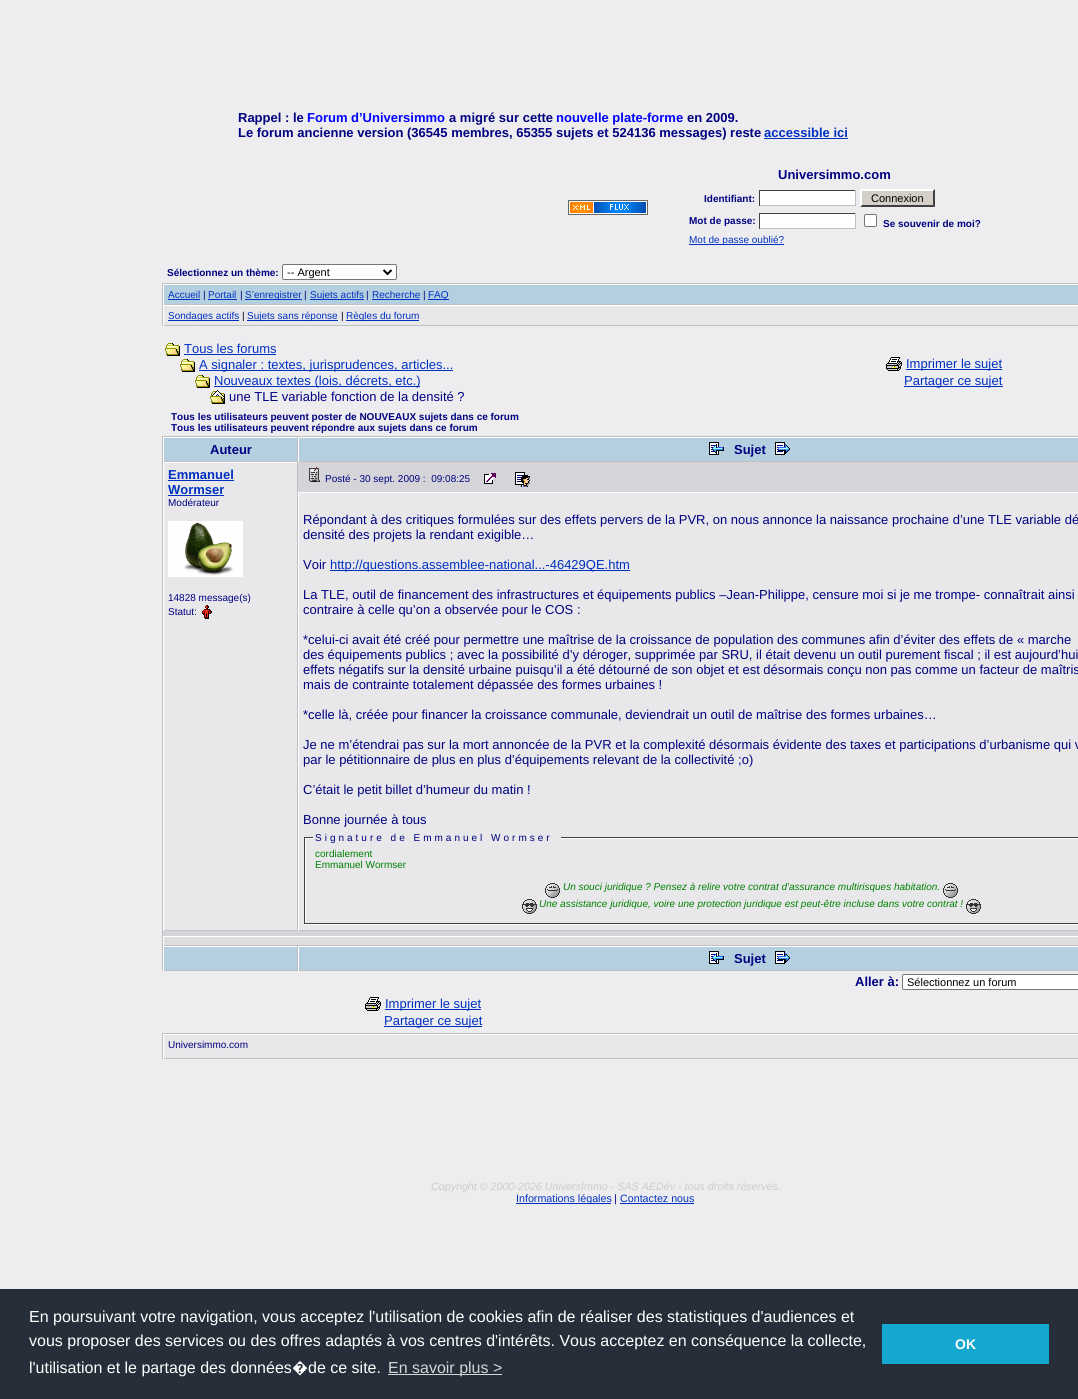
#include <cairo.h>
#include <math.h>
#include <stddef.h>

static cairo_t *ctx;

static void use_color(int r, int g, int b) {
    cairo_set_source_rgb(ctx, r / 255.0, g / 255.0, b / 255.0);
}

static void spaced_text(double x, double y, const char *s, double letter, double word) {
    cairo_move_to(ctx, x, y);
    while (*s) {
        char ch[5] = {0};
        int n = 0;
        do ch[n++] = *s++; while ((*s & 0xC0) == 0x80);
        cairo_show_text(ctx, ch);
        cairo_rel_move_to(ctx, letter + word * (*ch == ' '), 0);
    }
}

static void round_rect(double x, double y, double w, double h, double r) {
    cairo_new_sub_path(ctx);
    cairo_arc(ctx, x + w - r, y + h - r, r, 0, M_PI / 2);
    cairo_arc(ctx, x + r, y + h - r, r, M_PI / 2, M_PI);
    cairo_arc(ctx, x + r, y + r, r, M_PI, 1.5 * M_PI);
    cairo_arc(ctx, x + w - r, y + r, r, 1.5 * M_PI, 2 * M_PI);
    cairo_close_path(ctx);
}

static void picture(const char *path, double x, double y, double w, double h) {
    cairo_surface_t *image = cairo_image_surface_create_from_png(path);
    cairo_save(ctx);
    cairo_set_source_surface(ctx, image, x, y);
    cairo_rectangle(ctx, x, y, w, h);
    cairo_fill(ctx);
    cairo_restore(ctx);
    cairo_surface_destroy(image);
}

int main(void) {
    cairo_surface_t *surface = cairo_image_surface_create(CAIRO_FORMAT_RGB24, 1078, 1399);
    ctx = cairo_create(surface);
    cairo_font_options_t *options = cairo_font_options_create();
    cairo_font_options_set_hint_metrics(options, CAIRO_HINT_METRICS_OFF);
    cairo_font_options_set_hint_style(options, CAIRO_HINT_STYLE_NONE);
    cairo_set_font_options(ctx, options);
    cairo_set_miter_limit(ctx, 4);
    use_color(237, 237, 239);
    cairo_paint(ctx);
    cairo_select_font_face(ctx, "Liberation Sans", CAIRO_FONT_SLANT_NORMAL, CAIRO_FONT_WEIGHT_BOLD);
    cairo_set_font_size(ctx, 13);
    use_color(0, 0, 128);
    cairo_move_to(ctx, 238, 122);
    cairo_show_text(ctx, "Rappel : le");
    use_color(0, 0, 255);
    cairo_move_to(ctx, 307, 122);
    cairo_show_text(ctx, "Forum d’Universimmo");
    use_color(0, 0, 128);
    cairo_move_to(ctx, 449, 122);
    cairo_show_text(ctx, "a migré sur cette");
    use_color(0, 0, 255);
    cairo_move_to(ctx, 556, 122);
    cairo_show_text(ctx, "nouvelle plate-forme");
    use_color(0, 0, 128);
    cairo_move_to(ctx, 687, 122);
    cairo_show_text(ctx, "en 2009.");
    cairo_move_to(ctx, 238, 137);
    cairo_show_text(ctx, "Le forum ancienne version (36545 membres, 65355 sujets et 524136 messages) reste");
    use_color(0, 48, 192);
    cairo_move_to(ctx, 764, 137);
    cairo_show_text(ctx, "accessible ici");
    cairo_rectangle(ctx, 764, 138, 84, 1);
    cairo_fill(ctx);
    picture("img1.png", 568, 200, 80, 15);
    use_color(0, 0, 128);
    cairo_move_to(ctx, 778, 179);
    cairo_show_text(ctx, "Universimmo.com");
    cairo_set_font_size(ctx, 10);
    cairo_move_to(ctx, 704, 202);
    cairo_show_text(ctx, "Identifiant:");
    use_color(255, 255, 255);
    cairo_rectangle(ctx, 760, 191, 95, 14);
    cairo_fill(ctx);
    use_color(64, 64, 64);
    cairo_rectangle(ctx, 759, 190, 97, 1);
    cairo_fill(ctx);
    use_color(192, 192, 192);
    cairo_rectangle(ctx, 855, 190, 1, 16);
    cairo_fill(ctx);
    cairo_rectangle(ctx, 759, 205, 97, 1);
    cairo_fill(ctx);
    use_color(64, 64, 64);
    cairo_rectangle(ctx, 759, 190, 1, 16);
    cairo_fill(ctx);
    use_color(212, 208, 200);
    cairo_rectangle(ctx, 860, 189, 75, 18);
    cairo_fill(ctx);
    use_color(255, 255, 255);
    cairo_new_path(ctx);
    cairo_move_to(ctx, 860, 189);
    cairo_line_to(ctx, 935, 189);
    cairo_line_to(ctx, 933, 191);
    cairo_line_to(ctx, 862, 191);
    cairo_close_path(ctx);
    cairo_fill(ctx);
    use_color(64, 64, 64);
    cairo_new_path(ctx);
    cairo_move_to(ctx, 935, 189);
    cairo_line_to(ctx, 935, 207);
    cairo_line_to(ctx, 933, 205);
    cairo_line_to(ctx, 933, 191);
    cairo_close_path(ctx);
    cairo_fill(ctx);
    cairo_new_path(ctx);
    cairo_move_to(ctx, 935, 207);
    cairo_line_to(ctx, 860, 207);
    cairo_line_to(ctx, 862, 205);
    cairo_line_to(ctx, 933, 205);
    cairo_close_path(ctx);
    cairo_fill(ctx);
    use_color(255, 255, 255);
    cairo_new_path(ctx);
    cairo_move_to(ctx, 860, 207);
    cairo_line_to(ctx, 860, 189);
    cairo_line_to(ctx, 862, 191);
    cairo_line_to(ctx, 862, 205);
    cairo_close_path(ctx);
    cairo_fill(ctx);
    cairo_select_font_face(ctx, "Liberation Sans", CAIRO_FONT_SLANT_NORMAL, CAIRO_FONT_WEIGHT_NORMAL);
    cairo_set_font_size(ctx, 11);
    use_color(0, 0, 0);
    cairo_move_to(ctx, 871, 202);
    cairo_show_text(ctx, "Connexion");
    cairo_select_font_face(ctx, "Liberation Sans", CAIRO_FONT_SLANT_NORMAL, CAIRO_FONT_WEIGHT_BOLD);
    cairo_set_font_size(ctx, 10);
    use_color(0, 0, 128);
    cairo_move_to(ctx, 689, 224);
    cairo_show_text(ctx, "Mot de passe:");
    use_color(255, 255, 255);
    cairo_rectangle(ctx, 760, 214, 95, 14);
    cairo_fill(ctx);
    use_color(64, 64, 64);
    cairo_rectangle(ctx, 759, 213, 97, 1);
    cairo_fill(ctx);
    use_color(192, 192, 192);
    cairo_rectangle(ctx, 855, 213, 1, 16);
    cairo_fill(ctx);
    cairo_rectangle(ctx, 759, 228, 97, 1);
    cairo_fill(ctx);
    use_color(64, 64, 64);
    cairo_rectangle(ctx, 759, 213, 1, 16);
    cairo_fill(ctx);
    use_color(255, 255, 255);
    round_rect(864.5, 214.5, 12, 12, 1.5);
    cairo_fill_preserve(ctx);
    use_color(118, 118, 118);
    cairo_set_line_width(ctx, 1);
    cairo_stroke(ctx);
    use_color(0, 0, 128);
    cairo_move_to(ctx, 883, 227);
    cairo_show_text(ctx, "Se souvenir de moi?");
    use_color(0, 48, 192);
    cairo_rectangle(ctx, 689, 244, 95, 1);
    cairo_fill(ctx);
    cairo_select_font_face(ctx, "Liberation Sans", CAIRO_FONT_SLANT_NORMAL, CAIRO_FONT_WEIGHT_NORMAL);
    cairo_move_to(ctx, 689, 243);
    cairo_show_text(ctx, "Mot de passe oublié?");
    cairo_select_font_face(ctx, "Liberation Sans", CAIRO_FONT_SLANT_NORMAL, CAIRO_FONT_WEIGHT_BOLD);
    use_color(0, 0, 128);
    cairo_move_to(ctx, 167, 276);
    cairo_show_text(ctx, "Sélectionnez un thème:");
    use_color(255, 255, 255);
    round_rect(282.5, 264.5, 114, 15, 1.5);
    cairo_fill_preserve(ctx);
    use_color(118, 118, 118);
    cairo_stroke(ctx);
    cairo_new_path(ctx);
    cairo_move_to(ctx, 383.5, 270);
    cairo_line_to(ctx, 387.5, 274);
    cairo_line_to(ctx, 391.5, 270);
    use_color(0, 0, 0);
    cairo_set_line_width(ctx, 2);
    cairo_stroke(ctx);
    cairo_select_font_face(ctx, "Liberation Sans", CAIRO_FONT_SLANT_NORMAL, CAIRO_FONT_WEIGHT_NORMAL);
    cairo_set_font_size(ctx, 11);
    cairo_move_to(ctx, 287, 276);
    cairo_show_text(ctx, "-- Argent");
    use_color(192, 192, 192);
    cairo_rectangle(ctx, 162, 283, 916, 1);
    cairo_fill(ctx);
    cairo_rectangle(ctx, 162, 283, 1, 43);
    cairo_fill(ctx);
    use_color(180, 208, 224);
    cairo_rectangle(ctx, 164, 285, 914, 19);
    cairo_fill(ctx);
    use_color(255, 255, 255);
    cairo_rectangle(ctx, 163, 284, 915, 1);
    cairo_fill(ctx);
    use_color(192, 192, 192);
    cairo_rectangle(ctx, 163, 304, 915, 1);
    cairo_fill(ctx);
    use_color(255, 255, 255);
    cairo_rectangle(ctx, 163, 284, 1, 21);
    cairo_fill(ctx);
    cairo_set_font_size(ctx, 10);
    use_color(0, 48, 192);
    cairo_move_to(ctx, 168, 298);
    cairo_show_text(ctx, "Accueil");
    cairo_rectangle(ctx, 168, 299, 32, 1);
    cairo_fill(ctx);
    use_color(0, 0, 128);
    cairo_move_to(ctx, 203, 298);
    cairo_show_text(ctx, "|");
    use_color(0, 48, 192);
    cairo_move_to(ctx, 208, 298);
    cairo_show_text(ctx, "Portail");
    cairo_rectangle(ctx, 208, 299, 29, 1);
    cairo_fill(ctx);
    use_color(0, 0, 128);
    cairo_move_to(ctx, 240, 298);
    cairo_show_text(ctx, "|");
    use_color(0, 48, 192);
    cairo_rectangle(ctx, 245, 299, 57, 1);
    cairo_fill(ctx);
    cairo_move_to(ctx, 245, 298);
    cairo_show_text(ctx, "S’enregistrer");
    use_color(0, 0, 128);
    cairo_move_to(ctx, 304, 298);
    cairo_show_text(ctx, "|");
    use_color(0, 48, 192);
    cairo_rectangle(ctx, 310, 299, 54, 1);
    cairo_fill(ctx);
    cairo_move_to(ctx, 310, 298);
    cairo_show_text(ctx, "Sujets actifs");
    use_color(0, 0, 128);
    cairo_move_to(ctx, 366, 298);
    cairo_show_text(ctx, "|");
    use_color(0, 48, 192);
    cairo_move_to(ctx, 372, 298);
    cairo_show_text(ctx, "Recherche");
    cairo_rectangle(ctx, 372, 299, 48, 1);
    cairo_fill(ctx);
    use_color(0, 0, 128);
    cairo_move_to(ctx, 423, 298);
    cairo_show_text(ctx, "|");
    use_color(0, 48, 192);
    cairo_rectangle(ctx, 428, 299, 21, 1);
    cairo_fill(ctx);
    cairo_move_to(ctx, 428, 298);
    cairo_show_text(ctx, "FAQ");
    use_color(232, 232, 235);
    cairo_rectangle(ctx, 164, 306, 914, 19);
    cairo_fill(ctx);
    use_color(255, 255, 255);
    cairo_rectangle(ctx, 163, 305, 915, 1);
    cairo_fill(ctx);
    use_color(192, 192, 192);
    cairo_rectangle(ctx, 163, 325, 915, 1);
    cairo_fill(ctx);
    use_color(255, 255, 255);
    cairo_rectangle(ctx, 163, 305, 1, 21);
    cairo_fill(ctx);
    use_color(0, 48, 192);
    cairo_rectangle(ctx, 168, 320, 71, 1);
    cairo_fill(ctx);
    cairo_move_to(ctx, 168, 319);
    cairo_show_text(ctx, "Sondages actifs");
    use_color(0, 0, 0);
    cairo_move_to(ctx, 242, 319);
    cairo_show_text(ctx, "|");
    use_color(0, 48, 192);
    cairo_rectangle(ctx, 247, 320, 91, 1);
    cairo_fill(ctx);
    cairo_move_to(ctx, 247, 319);
    cairo_show_text(ctx, "Sujets sans réponse");
    use_color(0, 0, 0);
    cairo_move_to(ctx, 341, 319);
    cairo_show_text(ctx, "|");
    use_color(0, 48, 192);
    cairo_rectangle(ctx, 346, 320, 73, 1);
    cairo_fill(ctx);
    cairo_move_to(ctx, 346, 319);
    cairo_show_text(ctx, "Règles du forum");
    picture("img2.png", 165, 343, 15, 13);
    cairo_set_font_size(ctx, 13);
    cairo_move_to(ctx, 184, 353);
    cairo_show_text(ctx, "Tous les forums");
    cairo_rectangle(ctx, 184, 354, 92, 1);
    cairo_fill(ctx);
    picture("img2.png", 180, 359, 15, 13);
    cairo_rectangle(ctx, 199, 370, 254, 1);
    cairo_fill(ctx);
    cairo_move_to(ctx, 199, 369);
    cairo_show_text(ctx, "A signaler : textes, jurisprudences, articles...");
    picture("img2.png", 195, 375, 15, 13);
    cairo_rectangle(ctx, 214, 386, 206, 1);
    cairo_fill(ctx);
    cairo_move_to(ctx, 214, 385);
    cairo_show_text(ctx, "Nouveaux textes (lois, décrets, etc.)");
    picture("img3.png", 210, 390, 15, 14);
    use_color(0, 0, 128);
    cairo_move_to(ctx, 229, 401);
    cairo_show_text(ctx, "une TLE variable fonction de la densité ?");
    picture("img4.png", 886, 357, 16, 14);
    use_color(0, 48, 192);
    cairo_rectangle(ctx, 906, 369, 96, 1);
    cairo_fill(ctx);
    cairo_move_to(ctx, 906, 368);
    cairo_show_text(ctx, "Imprimer le sujet");
    cairo_rectangle(ctx, 904, 386, 99, 1);
    cairo_fill(ctx);
    cairo_move_to(ctx, 904, 385);
    cairo_show_text(ctx, "Partager ce sujet");
    cairo_select_font_face(ctx, "Liberation Sans", CAIRO_FONT_SLANT_NORMAL, CAIRO_FONT_WEIGHT_BOLD);
    cairo_set_font_size(ctx, 10);
    use_color(0, 0, 128);
    cairo_move_to(ctx, 171, 420);
    cairo_show_text(ctx, "Tous les utilisateurs peuvent poster de NOUVEAUX sujets dans ce forum");
    cairo_move_to(ctx, 171, 431);
    cairo_show_text(ctx, "Tous les utilisateurs peuvent répondre aux sujets dans ce forum");
    use_color(192, 192, 192);
    cairo_rectangle(ctx, 162, 436, 916, 1);
    cairo_fill(ctx);
    cairo_rectangle(ctx, 162, 436, 1, 535);
    cairo_fill(ctx);
    use_color(180, 208, 224);
    cairo_rectangle(ctx, 164, 438, 133, 23);
    cairo_fill(ctx);
    use_color(255, 255, 255);
    cairo_rectangle(ctx, 163, 437, 915, 1);
    cairo_fill(ctx);
    use_color(192, 192, 192);
    cairo_rectangle(ctx, 297, 437, 1, 25);
    cairo_fill(ctx);
    cairo_rectangle(ctx, 163, 461, 915, 1);
    cairo_fill(ctx);
    use_color(255, 255, 255);
    cairo_rectangle(ctx, 163, 437, 1, 25);
    cairo_fill(ctx);
    cairo_set_font_size(ctx, 13);
    use_color(0, 0, 128);
    cairo_move_to(ctx, 210, 454);
    cairo_show_text(ctx, "Auteur");
    use_color(180, 208, 224);
    cairo_rectangle(ctx, 299, 438, 779, 23);
    cairo_fill(ctx);
    use_color(255, 255, 255);
    cairo_rectangle(ctx, 298, 437, 1, 25);
    cairo_fill(ctx);
    picture("img5.png", 709, 442, 15, 13);
    use_color(0, 0, 128);
    cairo_move_to(ctx, 734, 454);
    cairo_show_text(ctx, "Sujet");
    picture("img6.png", 775, 442, 15, 13);
    use_color(232, 232, 235);
    cairo_rectangle(ctx, 164, 463, 133, 467);
    cairo_fill(ctx);
    use_color(255, 255, 255);
    cairo_rectangle(ctx, 163, 462, 135, 1);
    cairo_fill(ctx);
    use_color(192, 192, 192);
    cairo_rectangle(ctx, 297, 462, 1, 469);
    cairo_fill(ctx);
    cairo_rectangle(ctx, 163, 930, 915, 1);
    cairo_fill(ctx);
    use_color(255, 255, 255);
    cairo_rectangle(ctx, 163, 462, 1, 469);
    cairo_fill(ctx);
    use_color(0, 48, 192);
    cairo_move_to(ctx, 168, 479);
    cairo_show_text(ctx, "Emmanuel");
    cairo_rectangle(ctx, 168, 480, 66, 1);
    cairo_fill(ctx);
    cairo_move_to(ctx, 168, 494);
    cairo_show_text(ctx, "Wormser");
    cairo_rectangle(ctx, 168, 495, 56, 1);
    cairo_fill(ctx);
    cairo_select_font_face(ctx, "Liberation Sans", CAIRO_FONT_SLANT_NORMAL, CAIRO_FONT_WEIGHT_NORMAL);
    cairo_set_font_size(ctx, 10);
    use_color(0, 0, 128);
    cairo_move_to(ctx, 168, 506);
    cairo_show_text(ctx, "Modérateur");
    picture("img7.png", 168, 521, 75, 56);
    cairo_move_to(ctx, 168, 601);
    cairo_show_text(ctx, "14828 message(s)");
    cairo_move_to(ctx, 168, 615);
    cairo_show_text(ctx, "Statut:");
    picture("img8.png", 202, 605, 10, 14);
    use_color(213, 213, 217);
    cairo_rectangle(ctx, 298, 462, 780, 30);
    cairo_fill(ctx);
    picture("img9.png", 309, 467, 11, 15);
    use_color(0, 0, 128);
    cairo_move_to(ctx, 325, 482);
    cairo_show_text(ctx, "Posté - 30 sept. 2009 :  09:08:25");
    picture("img10.png", 484, 473, 12, 11);
    picture("img11.png", 515, 472, 15, 15);
    use_color(232, 232, 235);
    cairo_rectangle(ctx, 299, 493, 779, 437);
    cairo_fill(ctx);
    use_color(255, 255, 255);
    cairo_rectangle(ctx, 298, 492, 780, 1);
    cairo_fill(ctx);
    cairo_rectangle(ctx, 298, 492, 1, 439);
    cairo_fill(ctx);
    cairo_set_font_size(ctx, 13);
    use_color(0, 0, 128);
    cairo_move_to(ctx, 303, 524);
    cairo_show_text(ctx, "Répondant à des critiques formulées sur des effets pervers de la PVR, on nous annonce la naissance prochaine d’une TLE variable dé");
    cairo_move_to(ctx, 303, 539);
    cairo_show_text(ctx, "densité des projets la rendant exigible…");
    cairo_move_to(ctx, 303, 569);
    cairo_show_text(ctx, "Voir");
    use_color(0, 48, 192);
    cairo_rectangle(ctx, 330, 570, 300, 1);
    cairo_fill(ctx);
    cairo_move_to(ctx, 330, 569);
    cairo_show_text(ctx, "http://questions.assemblee-national...-46429QE.htm");
    use_color(0, 0, 128);
    cairo_move_to(ctx, 303, 599);
    cairo_show_text(ctx, "La TLE, outil de financement des infrastructures et équipements publics –Jean-Philippe, censure moi si je me trompe- connaîtrait ainsi");
    cairo_move_to(ctx, 303, 614);
    cairo_show_text(ctx, "contraire à celle qu’on a observée pour le COS :");
    cairo_move_to(ctx, 303, 644);
    cairo_show_text(ctx, "*celui-ci avait été créé pour permettre une maîtrise de la croissance de population des communes afin d’éviter des effets de « marche");
    cairo_move_to(ctx, 303, 659);
    cairo_show_text(ctx, "des équipements publics ; avec la possibilité d’y déroger, supprimée par SRU, il était devenu un outil purement fiscal ; il est aujourd’hui");
    cairo_move_to(ctx, 303, 674);
    cairo_show_text(ctx, "effets négatifs sur la densité urbaine puisqu’il a été détourné de son objet et est désormais conçu non pas comme un facteur de maîtris");
    cairo_move_to(ctx, 303, 689);
    cairo_show_text(ctx, "mais de contrainte totalement dépassée des formes urbaines !");
    cairo_move_to(ctx, 303, 719);
    cairo_show_text(ctx, "*celle là, créée pour financer la croissance communale, deviendrait un outil de maîtrise des formes urbaines…");
    cairo_move_to(ctx, 303, 749);
    cairo_show_text(ctx, "Je ne m’étendrai pas sur la mort annoncée de la PVR et la complexité désormais évidente des taxes et participations d’urbanisme qui v");
    cairo_move_to(ctx, 303, 764);
    cairo_show_text(ctx, "par le pétitionnaire de plus en plus d’équipements relevant de la collectivité ;o)");
    cairo_move_to(ctx, 303, 794);
    cairo_show_text(ctx, "C’était le petit billet d’humeur du matin !");
    cairo_move_to(ctx, 303, 824);
    cairo_show_text(ctx, "Bonne journée à tous");
    picture("img12.png", 304, 837, 9, 9);
    cairo_set_font_size(ctx, 10);
    spaced_text(315, 841, "Signature de Emmanuel Wormser", 3, 0);
    picture("img13.png", 561, 837, 517, 2);
    picture("img14.png", 304, 846, 2, 70);
    use_color(0, 128, 0);
    cairo_move_to(ctx, 315, 857);
    cairo_show_text(ctx, "cordialement");
    cairo_move_to(ctx, 315, 868);
    cairo_show_text(ctx, "Emmanuel Wormser");
    picture("img15.png", 545, 883, 15, 15);
    cairo_select_font_face(ctx, "Liberation Sans", CAIRO_FONT_SLANT_ITALIC, CAIRO_FONT_WEIGHT_NORMAL);
    cairo_move_to(ctx, 563, 890);
    cairo_show_text(ctx, "Un souci juridique ? Pensez à relire votre contrat d'assurance multirisques habitation.");
    picture("img15.png", 943, 883, 15, 15);
    picture("img16.png", 522, 899, 15, 15);
    cairo_move_to(ctx, 539, 907);
    cairo_show_text(ctx, "Une assistance juridique, voire une protection juridique est peut-être incluse dans votre contrat !");
    picture("img16.png", 966, 899, 15, 15);
    picture("img17.png", 304, 916, 9, 9);
    picture("img18.png", 313, 923, 765, 2);
    use_color(213, 213, 217);
    cairo_rectangle(ctx, 163, 931, 915, 5);
    cairo_fill(ctx);
    use_color(221, 221, 224);
    cairo_rectangle(ctx, 164, 937, 914, 8);
    cairo_fill(ctx);
    use_color(255, 255, 255);
    cairo_rectangle(ctx, 163, 936, 915, 1);
    cairo_fill(ctx);
    use_color(192, 192, 192);
    cairo_rectangle(ctx, 163, 945, 915, 1);
    cairo_fill(ctx);
    use_color(255, 255, 255);
    cairo_rectangle(ctx, 163, 936, 1, 10);
    cairo_fill(ctx);
    use_color(180, 208, 224);
    cairo_rectangle(ctx, 164, 947, 133, 23);
    cairo_fill(ctx);
    use_color(255, 255, 255);
    cairo_rectangle(ctx, 163, 946, 915, 1);
    cairo_fill(ctx);
    use_color(192, 192, 192);
    cairo_rectangle(ctx, 297, 946, 1, 25);
    cairo_fill(ctx);
    cairo_rectangle(ctx, 163, 970, 915, 1);
    cairo_fill(ctx);
    use_color(255, 255, 255);
    cairo_rectangle(ctx, 163, 946, 1, 25);
    cairo_fill(ctx);
    use_color(180, 208, 224);
    cairo_rectangle(ctx, 299, 947, 779, 23);
    cairo_fill(ctx);
    use_color(255, 255, 255);
    cairo_rectangle(ctx, 298, 946, 1, 25);
    cairo_fill(ctx);
    picture("img5.png", 709, 951, 15, 13);
    cairo_select_font_face(ctx, "Liberation Sans", CAIRO_FONT_SLANT_NORMAL, CAIRO_FONT_WEIGHT_BOLD);
    cairo_set_font_size(ctx, 13);
    use_color(0, 0, 128);
    cairo_move_to(ctx, 734, 963);
    cairo_show_text(ctx, "Sujet");
    picture("img6.png", 775, 951, 15, 13);
    cairo_move_to(ctx, 855, 986);
    cairo_show_text(ctx, "Aller à:");
    use_color(255, 255, 255);
    round_rect(902.5, 974.5, 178, 15, 1.5);
    cairo_fill_preserve(ctx);
    use_color(118, 118, 118);
    cairo_set_line_width(ctx, 1);
    cairo_stroke(ctx);
    cairo_select_font_face(ctx, "Liberation Sans", CAIRO_FONT_SLANT_NORMAL, CAIRO_FONT_WEIGHT_NORMAL);
    cairo_set_font_size(ctx, 11);
    use_color(0, 0, 0);
    cairo_move_to(ctx, 907, 986);
    cairo_show_text(ctx, "Sélectionnez un forum");
    picture("img4.png", 365, 997, 16, 14);
    use_color(0, 48, 192);
    cairo_rectangle(ctx, 385, 1009, 96, 1);
    cairo_fill(ctx);
    cairo_set_font_size(ctx, 13);
    cairo_move_to(ctx, 385, 1008);
    cairo_show_text(ctx, "Imprimer le sujet");
    cairo_rectangle(ctx, 384, 1026, 98, 1);
    cairo_fill(ctx);
    cairo_move_to(ctx, 384, 1025);
    cairo_show_text(ctx, "Partager ce sujet");
    use_color(192, 192, 192);
    cairo_rectangle(ctx, 162, 1033, 916, 1);
    cairo_fill(ctx);
    cairo_rectangle(ctx, 162, 1033, 1, 26);
    cairo_fill(ctx);
    use_color(232, 232, 235);
    cairo_rectangle(ctx, 164, 1035, 914, 23);
    cairo_fill(ctx);
    use_color(255, 255, 255);
    cairo_rectangle(ctx, 163, 1034, 915, 1);
    cairo_fill(ctx);
    use_color(192, 192, 192);
    cairo_rectangle(ctx, 163, 1058, 915, 1);
    cairo_fill(ctx);
    use_color(255, 255, 255);
    cairo_rectangle(ctx, 163, 1034, 1, 25);
    cairo_fill(ctx);
    cairo_set_font_size(ctx, 10);
    use_color(0, 0, 128);
    cairo_move_to(ctx, 168, 1048);
    cairo_show_text(ctx, "Universimmo.com");
    cairo_select_font_face(ctx, "Liberation Sans", CAIRO_FONT_SLANT_ITALIC, CAIRO_FONT_WEIGHT_NORMAL);
    cairo_set_font_size(ctx, 10.7);
    use_color(204, 204, 204);
    cairo_move_to(ctx, 431, 1190);
    cairo_show_text(ctx, "Copyright © 2000-2026 UniversImmo - SAS AEDév - tous droits réservés.");
    use_color(0, 48, 192);
    cairo_rectangle(ctx, 516, 1203, 95, 1);
    cairo_fill(ctx);
    cairo_select_font_face(ctx, "Liberation Sans", CAIRO_FONT_SLANT_NORMAL, CAIRO_FONT_WEIGHT_NORMAL);
    cairo_move_to(ctx, 516, 1202);
    cairo_show_text(ctx, "Informations légales");
    use_color(0, 0, 128);
    cairo_move_to(ctx, 614, 1202);
    cairo_show_text(ctx, "|");
    use_color(0, 48, 192);
    cairo_move_to(ctx, 620, 1202);
    cairo_show_text(ctx, "Contactez nous");
    cairo_rectangle(ctx, 620, 1203, 74, 1);
    cairo_fill(ctx);
    use_color(37, 46, 57);
    cairo_rectangle(ctx, 0, 1289, 1078, 110);
    cairo_fill(ctx);
    cairo_set_font_size(ctx, 16);
    use_color(255, 255, 255);
    cairo_move_to(ctx, 29, 1322);
    cairo_show_text(ctx, "En poursuivant votre navigation, vous acceptez l'utilisation de cookies afin de réaliser des statistiques d'audiences et");
    cairo_move_to(ctx, 29, 1346);
    cairo_show_text(ctx, "vous proposer des services ou des offres adaptés à vos centres d'intérêts. Vous acceptez en conséquence la collecte,");
    cairo_move_to(ctx, 29, 1373);
    cairo_show_text(ctx, "l'utilisation et le partage des données");
    cairo_select_font_face(ctx, "Noto Sans", CAIRO_FONT_SLANT_NORMAL, CAIRO_FONT_WEIGHT_NORMAL);
    cairo_move_to(ctx, 292, 1373);
    cairo_show_text(ctx, "�");
    cairo_select_font_face(ctx, "Liberation Sans", CAIRO_FONT_SLANT_NORMAL, CAIRO_FONT_WEIGHT_NORMAL);
    cairo_move_to(ctx, 308, 1373);
    cairo_show_text(ctx, "de ce site.");
    use_color(211, 213, 215);
    cairo_rectangle(ctx, 388, 1374, 114, 1);
    cairo_fill(ctx);
    cairo_move_to(ctx, 388, 1373);
    cairo_show_text(ctx, "En savoir plus >");
    use_color(20, 167, 208);
    cairo_rectangle(ctx, 882, 1324, 167, 40);
    cairo_fill(ctx);
    cairo_select_font_face(ctx, "Liberation Sans", CAIRO_FONT_SLANT_NORMAL, CAIRO_FONT_WEIGHT_BOLD);
    cairo_set_font_size(ctx, 14);
    use_color(255, 255, 255);
    cairo_move_to(ctx, 955, 1349);
    cairo_show_text(ctx, "OK");
    cairo_surface_write_to_png(surface, "result.png");
    cairo_font_options_destroy(options);
    cairo_destroy(ctx);
    cairo_surface_destroy(surface);
    return 0;
}
